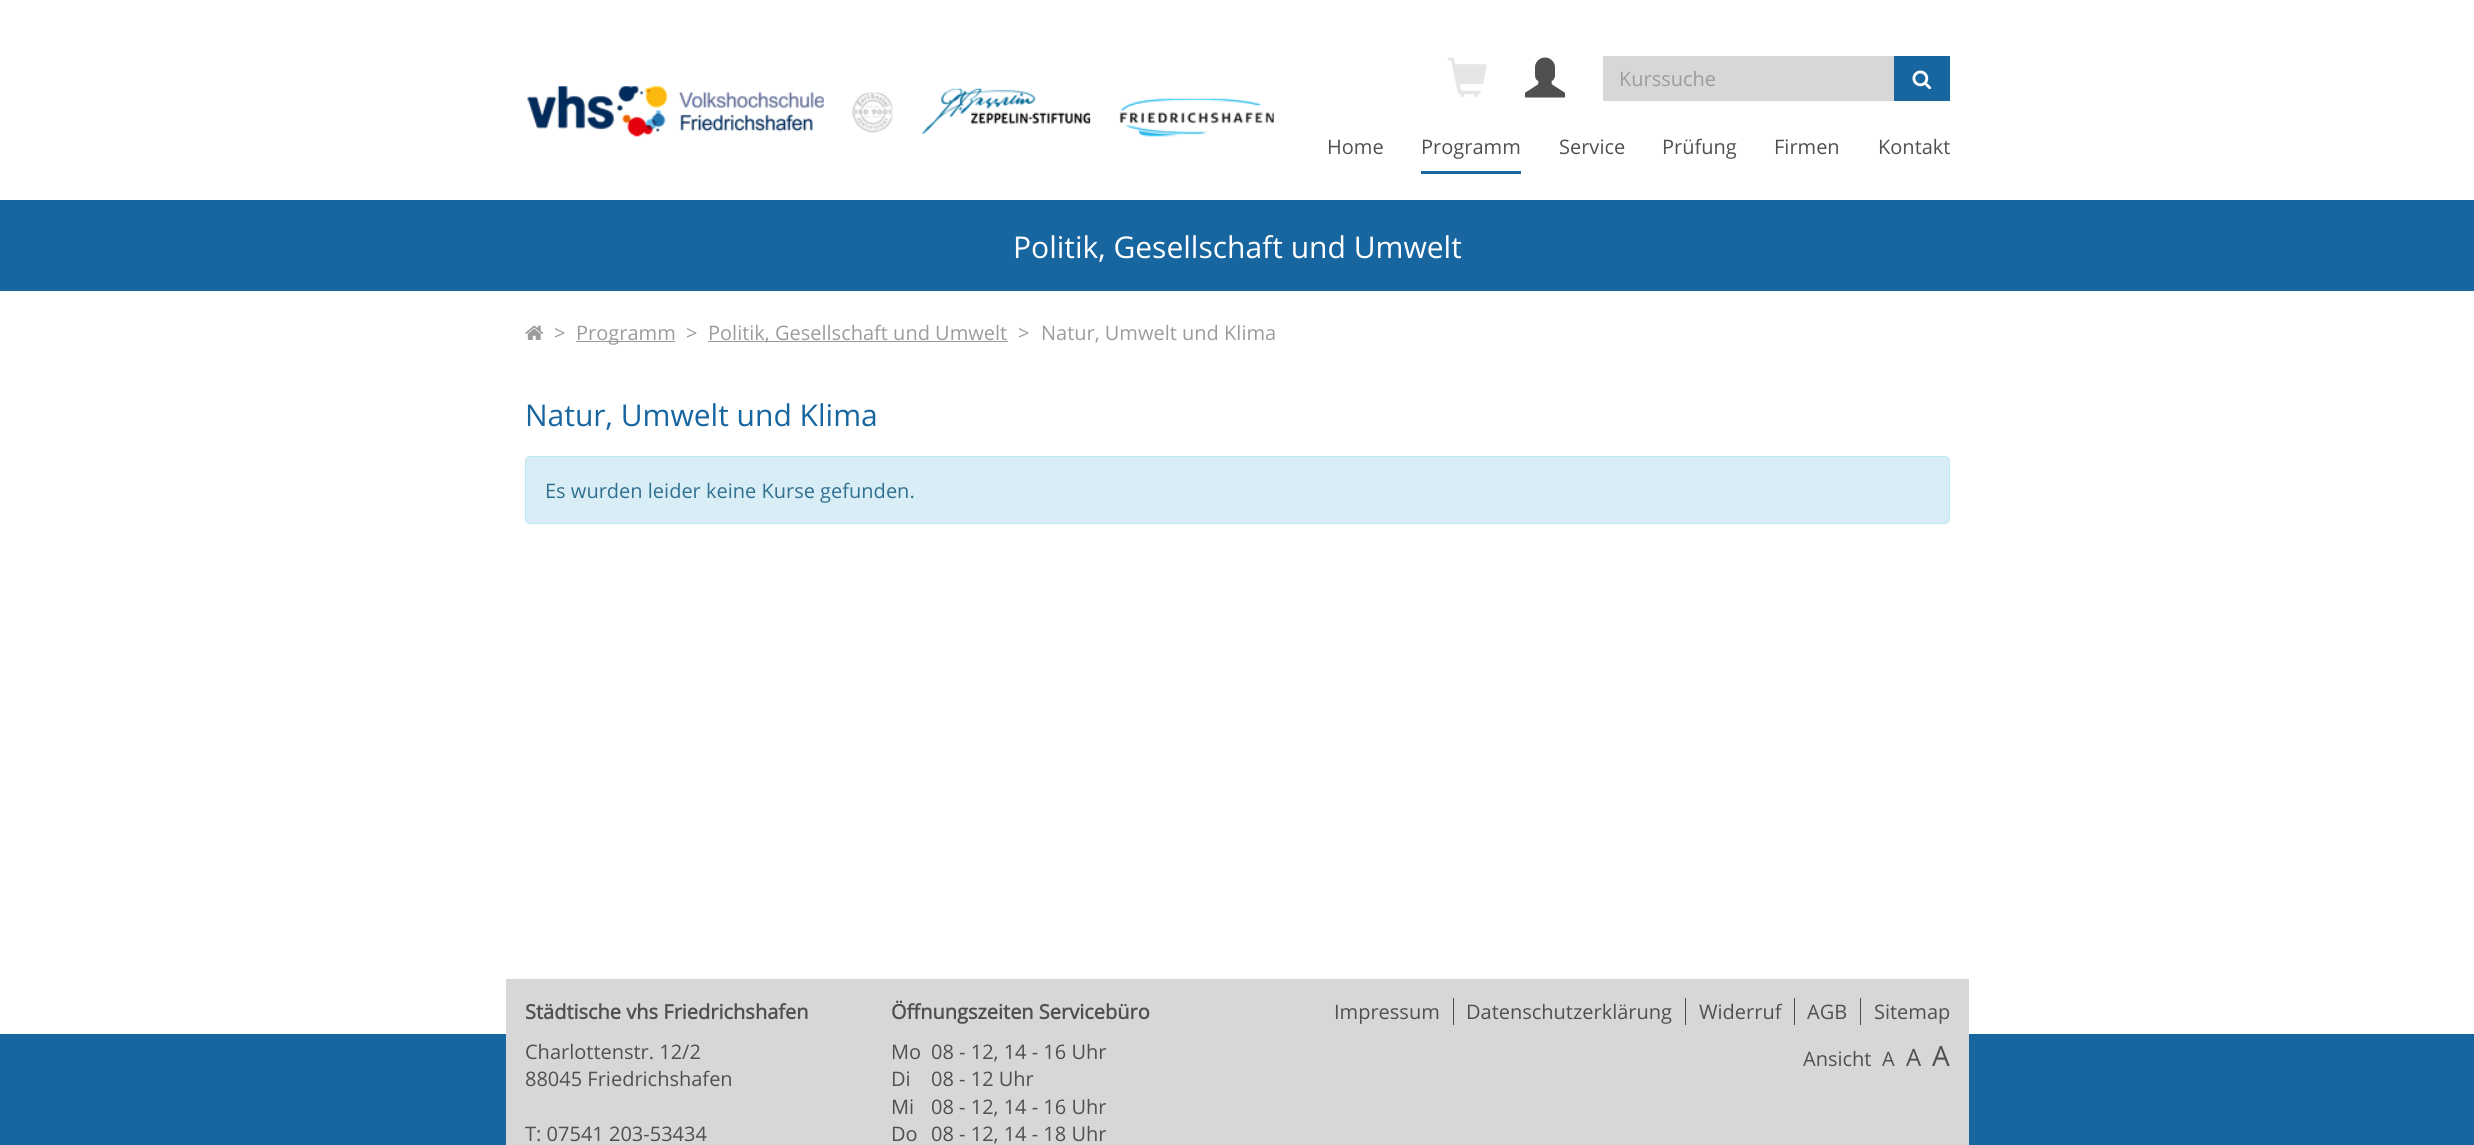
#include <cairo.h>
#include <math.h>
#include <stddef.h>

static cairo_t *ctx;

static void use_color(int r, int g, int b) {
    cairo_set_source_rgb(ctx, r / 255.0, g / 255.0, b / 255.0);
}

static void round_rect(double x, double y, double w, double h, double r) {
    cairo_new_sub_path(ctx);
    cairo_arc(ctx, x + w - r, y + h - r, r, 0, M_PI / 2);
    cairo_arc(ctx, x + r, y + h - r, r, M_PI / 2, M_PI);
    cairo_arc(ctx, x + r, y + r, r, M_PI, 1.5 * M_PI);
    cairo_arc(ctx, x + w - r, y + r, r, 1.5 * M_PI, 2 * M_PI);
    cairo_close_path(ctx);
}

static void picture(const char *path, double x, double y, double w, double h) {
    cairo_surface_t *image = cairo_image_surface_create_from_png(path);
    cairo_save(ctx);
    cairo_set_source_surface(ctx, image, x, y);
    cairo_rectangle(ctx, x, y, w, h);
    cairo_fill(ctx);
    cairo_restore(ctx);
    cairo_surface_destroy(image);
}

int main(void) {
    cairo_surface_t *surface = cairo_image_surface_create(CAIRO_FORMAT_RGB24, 2474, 1145);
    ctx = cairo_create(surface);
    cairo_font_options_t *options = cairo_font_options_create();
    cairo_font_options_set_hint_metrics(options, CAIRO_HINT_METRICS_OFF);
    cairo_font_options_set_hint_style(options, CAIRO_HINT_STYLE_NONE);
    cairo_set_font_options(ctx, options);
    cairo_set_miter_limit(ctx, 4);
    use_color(255, 255, 255);
    cairo_paint(ctx);
    picture("img1.png", 527, 86, 747, 51);
    picture("img2.png", 1447, 57, 40, 41);
    picture("img3.png", 1525, 57, 40, 41);
    use_color(215, 215, 215);
    cairo_rectangle(ctx, 1603, 56, 291, 45);
    cairo_fill(ctx);
    cairo_select_font_face(ctx, "Open Sans", CAIRO_FONT_SLANT_NORMAL, CAIRO_FONT_WEIGHT_NORMAL);
    cairo_set_font_size(ctx, 20);
    use_color(156, 156, 156);
    cairo_move_to(ctx, 1619, 86);
    cairo_show_text(ctx, "Kurssuche");
    use_color(24, 102, 160);
    cairo_rectangle(ctx, 1894, 56, 56, 45);
    cairo_fill(ctx);
    picture("img4.png", 1912, 70, 20, 20);
    use_color(80, 80, 80);
    cairo_move_to(ctx, 1327, 154);
    cairo_show_text(ctx, "Home");
    cairo_move_to(ctx, 1421, 154);
    cairo_show_text(ctx, "Programm");
    use_color(24, 102, 160);
    cairo_rectangle(ctx, 1421, 171, 100, 3);
    cairo_fill(ctx);
    use_color(80, 80, 80);
    cairo_move_to(ctx, 1559, 154);
    cairo_show_text(ctx, "Service");
    cairo_move_to(ctx, 1662, 154);
    cairo_show_text(ctx, "Prüfung");
    cairo_move_to(ctx, 1774, 154);
    cairo_show_text(ctx, "Firmen");
    cairo_move_to(ctx, 1878, 154);
    cairo_show_text(ctx, "Kontakt");
    use_color(24, 102, 160);
    cairo_rectangle(ctx, 0, 200, 2474, 91);
    cairo_fill(ctx);
    cairo_set_font_size(ctx, 30);
    use_color(255, 255, 255);
    cairo_move_to(ctx, 1013, 258);
    cairo_show_text(ctx, "Politik, Gesellschaft und Umwelt");
    picture("img5.png", 525, 325, 19, 15);
    cairo_set_font_size(ctx, 20);
    use_color(156, 156, 156);
    cairo_move_to(ctx, 554, 340);
    cairo_show_text(ctx, ">");
    cairo_rectangle(ctx, 576, 341, 99, 1);
    cairo_fill(ctx);
    cairo_move_to(ctx, 576, 340);
    cairo_show_text(ctx, "Programm");
    cairo_move_to(ctx, 686, 340);
    cairo_show_text(ctx, ">");
    cairo_rectangle(ctx, 708, 341, 300, 1);
    cairo_fill(ctx);
    cairo_move_to(ctx, 708, 340);
    cairo_show_text(ctx, "Politik, Gesellschaft und Umwelt");
    cairo_move_to(ctx, 1018, 340);
    cairo_show_text(ctx, ">");
    cairo_move_to(ctx, 1041, 340);
    cairo_show_text(ctx, "Natur, Umwelt und Klima");
    cairo_set_font_size(ctx, 30);
    use_color(24, 102, 160);
    cairo_move_to(ctx, 525, 426);
    cairo_show_text(ctx, "Natur, Umwelt und Klima");
    use_color(217, 237, 247);
    round_rect(525.5, 456.5, 1424, 67, 4.5);
    cairo_fill_preserve(ctx);
    use_color(188, 232, 241);
    cairo_set_line_width(ctx, 1);
    cairo_stroke(ctx);
    cairo_set_font_size(ctx, 20);
    use_color(49, 112, 143);
    cairo_move_to(ctx, 545, 498);
    cairo_show_text(ctx, "Es wurden leider keine Kurse gefunden.");
    use_color(24, 102, 160);
    cairo_rectangle(ctx, 0, 1034, 2474, 111);
    cairo_fill(ctx);
    use_color(215, 215, 215);
    cairo_rectangle(ctx, 506, 979, 1463, 166);
    cairo_fill(ctx);
    cairo_select_font_face(ctx, "Open Sans", CAIRO_FONT_SLANT_NORMAL, CAIRO_FONT_WEIGHT_BOLD);
    use_color(80, 80, 80);
    cairo_move_to(ctx, 525, 1019);
    cairo_show_text(ctx, "Städtische vhs Friedrichshafen");
    cairo_select_font_face(ctx, "Open Sans", CAIRO_FONT_SLANT_NORMAL, CAIRO_FONT_WEIGHT_NORMAL);
    cairo_move_to(ctx, 525, 1059);
    cairo_show_text(ctx, "Charlottenstr. 12/2");
    cairo_move_to(ctx, 525, 1086);
    cairo_show_text(ctx, "88045 Friedrichshafen");
    cairo_move_to(ctx, 525, 1141);
    cairo_show_text(ctx, "T: 07541 203-53434");
    cairo_select_font_face(ctx, "Open Sans", CAIRO_FONT_SLANT_NORMAL, CAIRO_FONT_WEIGHT_BOLD);
    cairo_move_to(ctx, 891, 1019);
    cairo_show_text(ctx, "Öffnungszeiten Servicebüro");
    cairo_select_font_face(ctx, "Open Sans", CAIRO_FONT_SLANT_NORMAL, CAIRO_FONT_WEIGHT_NORMAL);
    cairo_move_to(ctx, 891, 1059);
    cairo_show_text(ctx, "Mo");
    cairo_move_to(ctx, 931, 1059);
    cairo_show_text(ctx, "08 - 12, 14 - 16 Uhr");
    cairo_move_to(ctx, 891, 1086);
    cairo_show_text(ctx, "Di");
    cairo_move_to(ctx, 931, 1086);
    cairo_show_text(ctx, "08 - 12 Uhr");
    cairo_move_to(ctx, 891, 1114);
    cairo_show_text(ctx, "Mi");
    cairo_move_to(ctx, 931, 1114);
    cairo_show_text(ctx, "08 - 12, 14 - 16 Uhr");
    cairo_move_to(ctx, 891, 1141);
    cairo_show_text(ctx, "Do");
    cairo_move_to(ctx, 931, 1141);
    cairo_show_text(ctx, "08 - 12, 14 - 18 Uhr");
    cairo_rectangle(ctx, 1453, 998, 1, 27);
    cairo_fill(ctx);
    cairo_move_to(ctx, 1334, 1019);
    cairo_show_text(ctx, "Impressum");
    cairo_rectangle(ctx, 1685, 998, 1, 27);
    cairo_fill(ctx);
    cairo_move_to(ctx, 1466, 1019);
    cairo_show_text(ctx, "Datenschutzerklärung");
    cairo_rectangle(ctx, 1794, 998, 1, 27);
    cairo_fill(ctx);
    cairo_move_to(ctx, 1699, 1019);
    cairo_show_text(ctx, "Widerruf");
    cairo_rectangle(ctx, 1860, 998, 1, 27);
    cairo_fill(ctx);
    cairo_move_to(ctx, 1807, 1019);
    cairo_show_text(ctx, "AGB");
    cairo_move_to(ctx, 1874, 1019);
    cairo_show_text(ctx, "Sitemap");
    cairo_move_to(ctx, 1803, 1066);
    cairo_show_text(ctx, "Ansicht");
    cairo_move_to(ctx, 1882, 1066);
    cairo_show_text(ctx, "A");
    cairo_set_font_size(ctx, 24);
    cairo_move_to(ctx, 1906, 1066);
    cairo_show_text(ctx, "A");
    cairo_set_font_size(ctx, 28);
    cairo_move_to(ctx, 1932, 1066);
    cairo_show_text(ctx, "A");
    cairo_surface_write_to_png(surface, "result.png");
    cairo_font_options_destroy(options);
    cairo_destroy(ctx);
    cairo_surface_destroy(surface);
    return 0;
}
